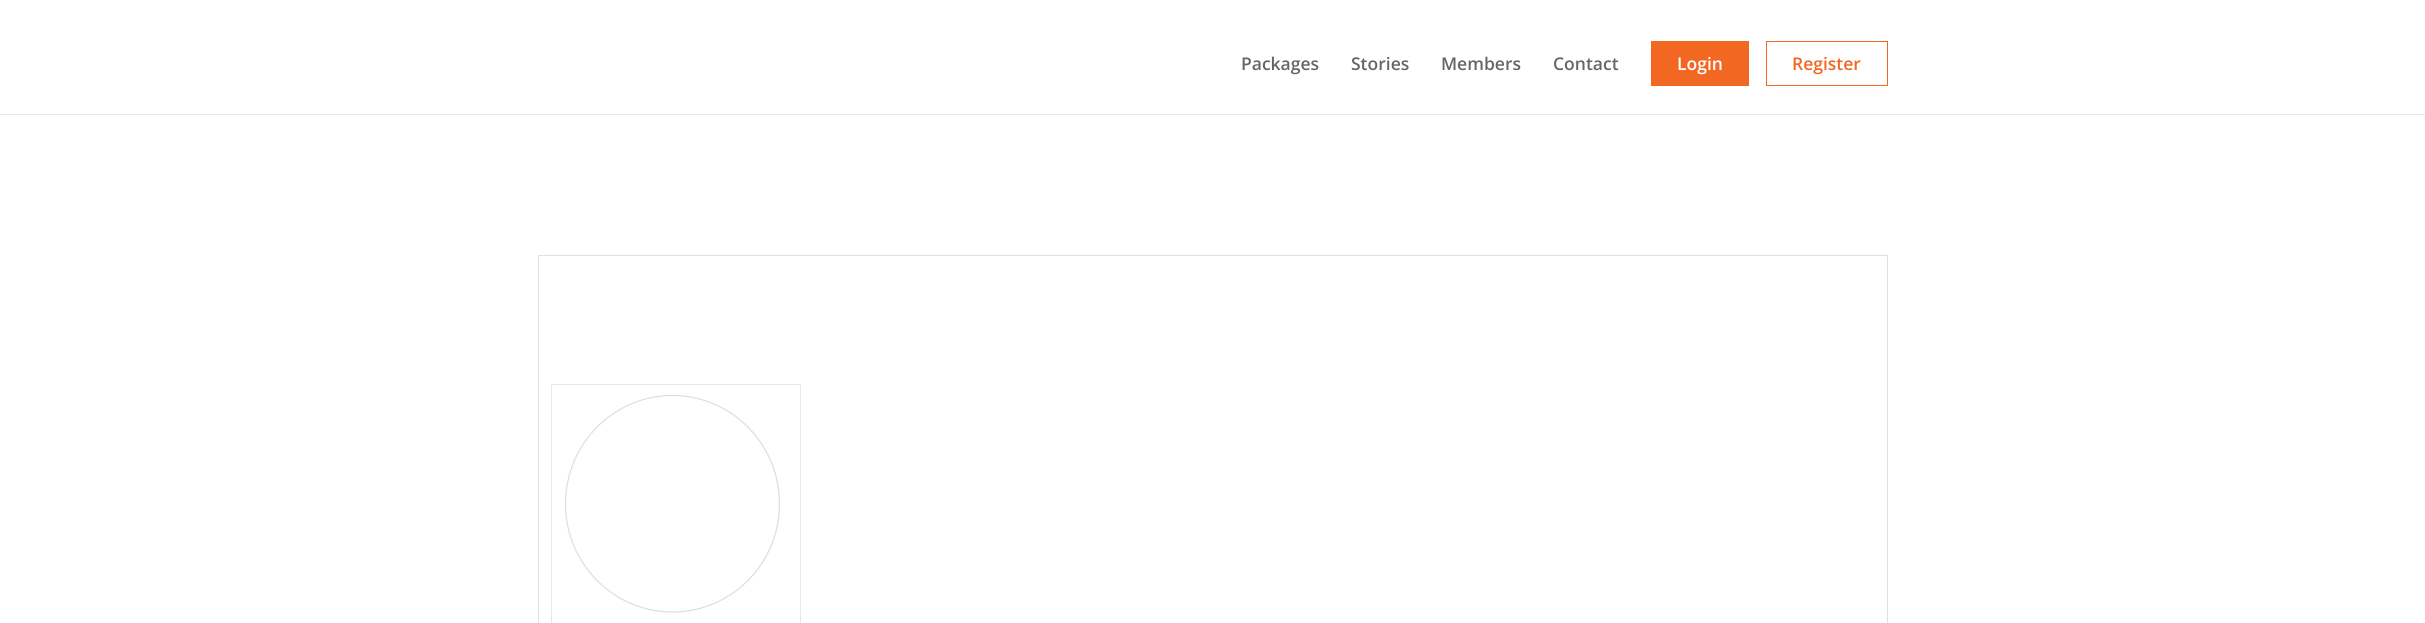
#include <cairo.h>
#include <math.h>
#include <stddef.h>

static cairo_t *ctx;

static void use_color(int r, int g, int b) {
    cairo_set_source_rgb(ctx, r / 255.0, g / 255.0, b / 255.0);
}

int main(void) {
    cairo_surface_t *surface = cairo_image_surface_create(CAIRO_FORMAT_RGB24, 2425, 623);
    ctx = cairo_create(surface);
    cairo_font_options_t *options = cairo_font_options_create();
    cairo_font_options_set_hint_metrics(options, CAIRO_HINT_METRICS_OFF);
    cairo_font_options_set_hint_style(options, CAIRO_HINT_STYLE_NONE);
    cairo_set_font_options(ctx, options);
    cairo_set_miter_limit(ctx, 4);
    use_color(255, 255, 255);
    cairo_paint(ctx);
    use_color(230, 230, 230);
    cairo_rectangle(ctx, 0, 114, 2425, 1);
    cairo_fill(ctx);
    cairo_select_font_face(ctx, "Open Sans SemiBold", CAIRO_FONT_SLANT_NORMAL, CAIRO_FONT_WEIGHT_NORMAL);
    cairo_set_font_size(ctx, 17.5);
    use_color(102, 102, 102);
    cairo_move_to(ctx, 1241, 70);
    cairo_show_text(ctx, "Packages");
    cairo_move_to(ctx, 1351, 70);
    cairo_show_text(ctx, "Stories");
    cairo_move_to(ctx, 1441, 70);
    cairo_show_text(ctx, "Members");
    cairo_move_to(ctx, 1553, 70);
    cairo_show_text(ctx, "Contact");
    use_color(242, 103, 34);
    cairo_rectangle(ctx, 1651, 41, 98, 45);
    cairo_fill(ctx);
    use_color(255, 255, 255);
    cairo_move_to(ctx, 1677, 70);
    cairo_show_text(ctx, "Login");
    cairo_rectangle(ctx, 1766.5, 41.5, 121, 44);
    use_color(242, 103, 34);
    cairo_set_line_width(ctx, 1);
    cairo_stroke(ctx);
    cairo_move_to(ctx, 1792, 70);
    cairo_show_text(ctx, "Register");
    cairo_rectangle(ctx, 538.5, 255.5, 1349, 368);
    use_color(225, 225, 225);
    cairo_stroke(ctx);
    cairo_rectangle(ctx, 551.5, 384.5, 249, 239);
    use_color(232, 232, 232);
    cairo_stroke(ctx);
    cairo_new_path(ctx);
    cairo_move_to(ctx, 672.5, 395.5);
    cairo_curve_to(ctx, 731.5, 395.5, 779.5, 444, 779.5, 504);
    cairo_curve_to(ctx, 779.5, 563.5, 731.5, 612, 672.5, 612);
    cairo_curve_to(ctx, 613.5, 612, 565.5, 563.5, 565.5, 504);
    cairo_curve_to(ctx, 565.5, 444, 613.5, 395.5, 672.5, 395.5);
    cairo_close_path(ctx);
    use_color(222, 222, 222);
    cairo_set_line_width(ctx, 1.2);
    cairo_stroke(ctx);
    cairo_surface_write_to_png(surface, "result.png");
    cairo_font_options_destroy(options);
    cairo_destroy(ctx);
    cairo_surface_destroy(surface);
    return 0;
}
